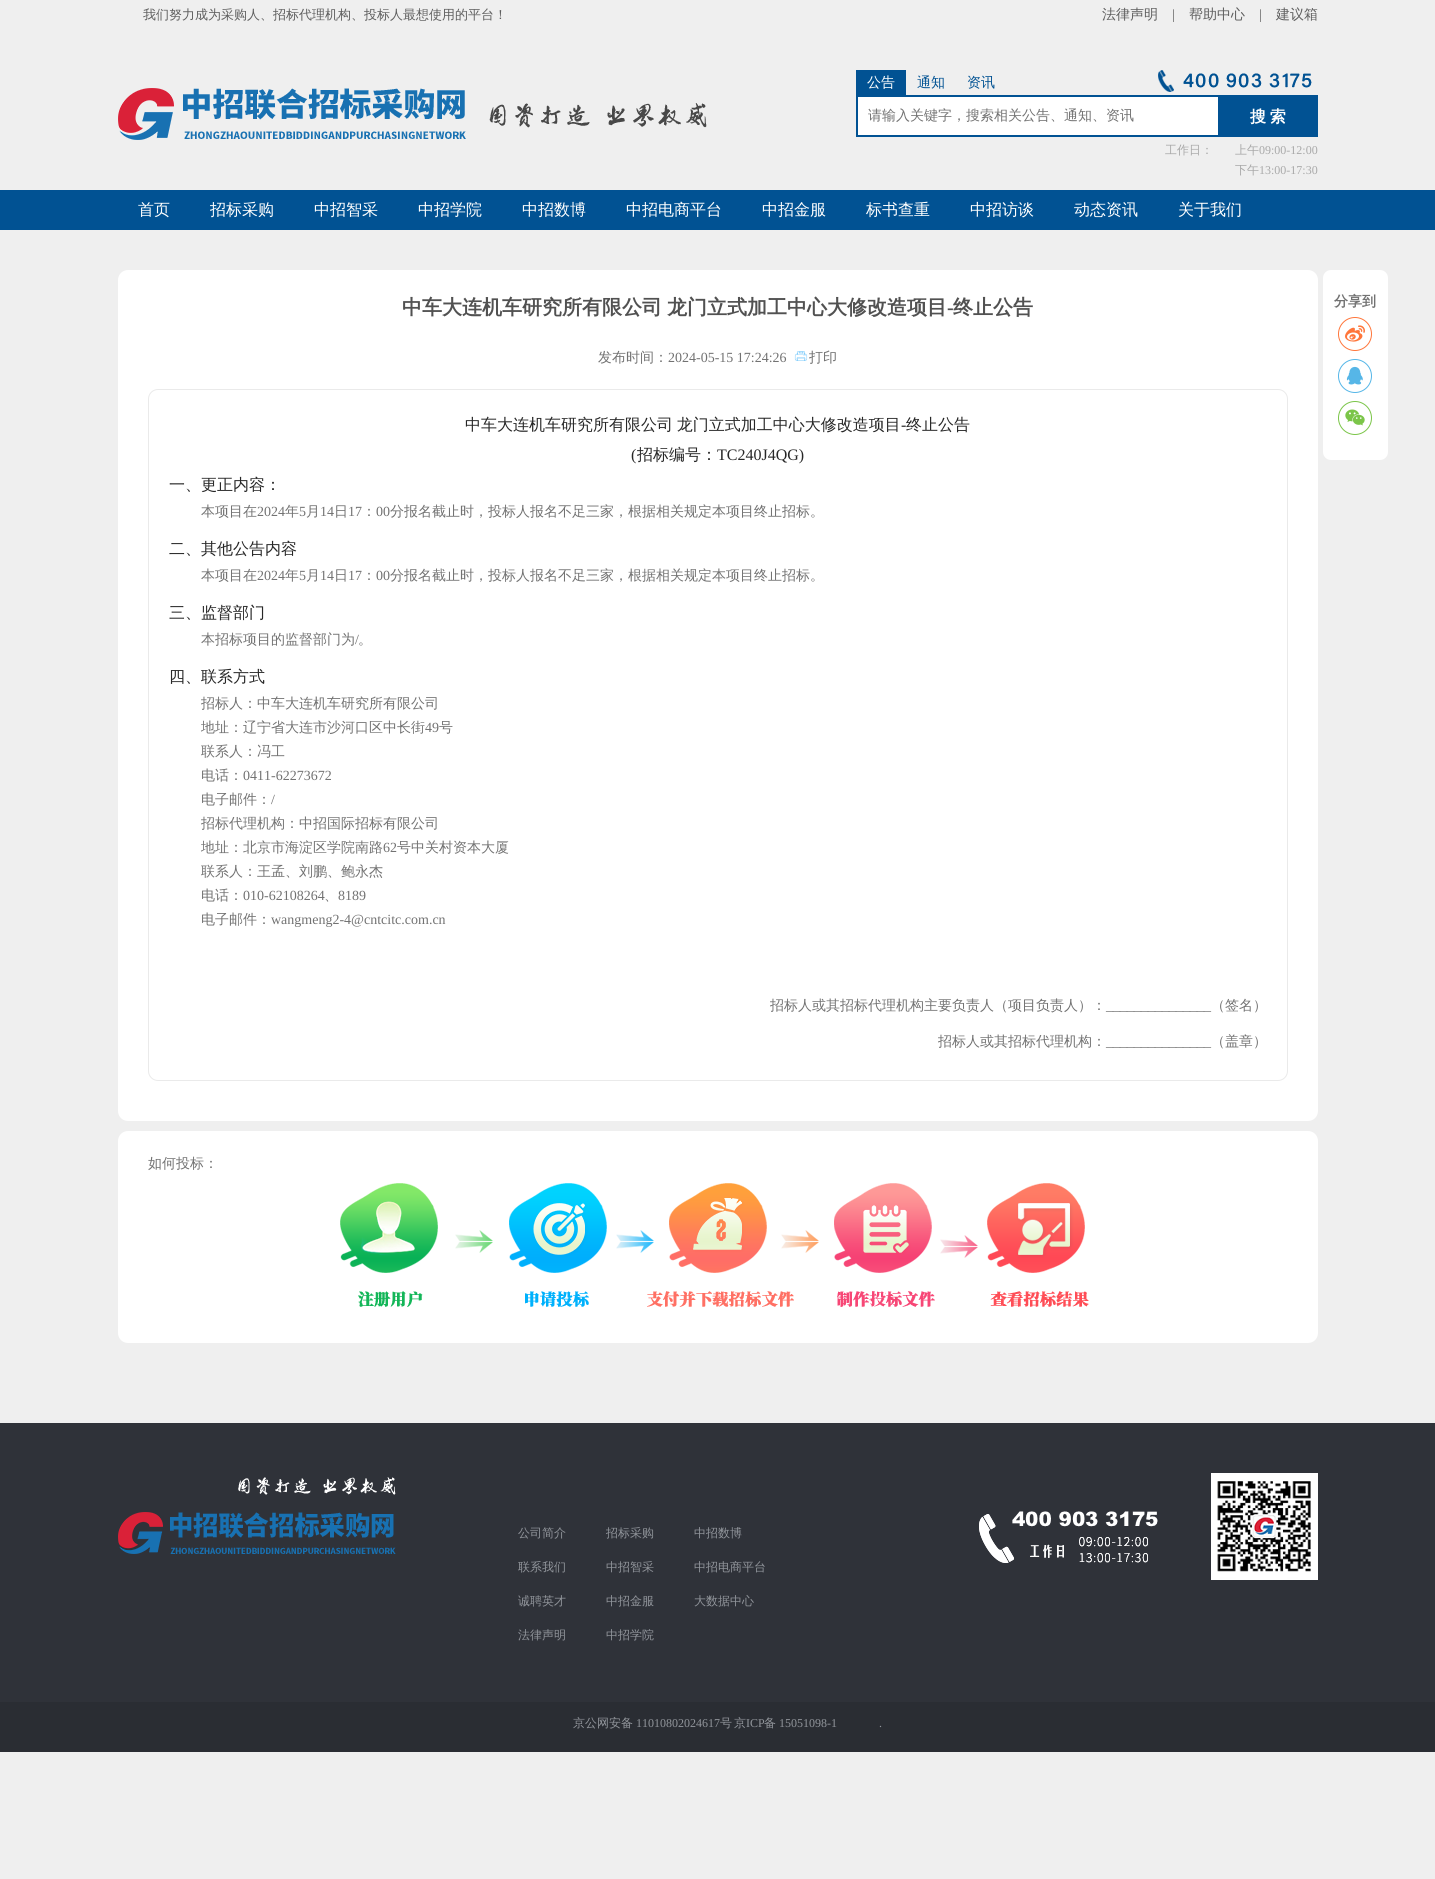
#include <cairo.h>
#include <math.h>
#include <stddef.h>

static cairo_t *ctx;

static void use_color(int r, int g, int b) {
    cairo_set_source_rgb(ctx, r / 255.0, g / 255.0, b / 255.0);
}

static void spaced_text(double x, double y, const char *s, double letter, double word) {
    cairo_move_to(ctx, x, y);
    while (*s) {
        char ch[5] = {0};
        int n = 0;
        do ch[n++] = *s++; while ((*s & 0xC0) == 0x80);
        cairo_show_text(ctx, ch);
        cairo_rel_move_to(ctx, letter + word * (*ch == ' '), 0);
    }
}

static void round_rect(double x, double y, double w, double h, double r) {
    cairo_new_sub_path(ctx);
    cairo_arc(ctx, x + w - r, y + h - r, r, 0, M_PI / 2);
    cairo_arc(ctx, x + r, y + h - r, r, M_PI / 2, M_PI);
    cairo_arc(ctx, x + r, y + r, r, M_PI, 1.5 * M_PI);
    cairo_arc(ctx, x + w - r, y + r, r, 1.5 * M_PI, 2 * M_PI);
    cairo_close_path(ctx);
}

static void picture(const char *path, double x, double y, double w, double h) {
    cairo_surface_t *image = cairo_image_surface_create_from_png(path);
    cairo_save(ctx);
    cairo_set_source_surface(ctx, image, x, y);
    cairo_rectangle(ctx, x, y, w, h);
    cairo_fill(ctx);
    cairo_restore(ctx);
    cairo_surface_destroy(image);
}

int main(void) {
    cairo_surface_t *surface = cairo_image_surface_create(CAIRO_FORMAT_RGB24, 1435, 1879);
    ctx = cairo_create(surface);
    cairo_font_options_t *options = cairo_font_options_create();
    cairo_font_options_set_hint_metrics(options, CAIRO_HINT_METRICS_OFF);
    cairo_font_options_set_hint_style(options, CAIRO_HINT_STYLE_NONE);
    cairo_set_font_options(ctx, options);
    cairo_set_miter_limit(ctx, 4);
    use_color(239, 239, 239);
    cairo_paint(ctx);
    cairo_select_font_face(ctx, "WenQuanYi Zen Hei Medium", CAIRO_FONT_SLANT_NORMAL, CAIRO_FONT_WEIGHT_NORMAL);
    cairo_set_font_size(ctx, 13);
    use_color(94, 94, 94);
    cairo_move_to(ctx, 143, 19);
    cairo_show_text(ctx, "我们努力成为采购人、招标代理机构、投标人最想使用的平台！");
    cairo_set_font_size(ctx, 14);
    cairo_move_to(ctx, 1102, 19);
    cairo_show_text(ctx, "法律声明");
    cairo_select_font_face(ctx, "Liberation Serif", CAIRO_FONT_SLANT_NORMAL, CAIRO_FONT_WEIGHT_NORMAL);
    cairo_move_to(ctx, 1172, 19);
    cairo_show_text(ctx, "|");
    cairo_select_font_face(ctx, "WenQuanYi Zen Hei Medium", CAIRO_FONT_SLANT_NORMAL, CAIRO_FONT_WEIGHT_NORMAL);
    cairo_move_to(ctx, 1189, 19);
    cairo_show_text(ctx, "帮助中心");
    cairo_select_font_face(ctx, "Liberation Serif", CAIRO_FONT_SLANT_NORMAL, CAIRO_FONT_WEIGHT_NORMAL);
    cairo_move_to(ctx, 1259, 19);
    cairo_show_text(ctx, "|");
    cairo_select_font_face(ctx, "WenQuanYi Zen Hei Medium", CAIRO_FONT_SLANT_NORMAL, CAIRO_FONT_WEIGHT_NORMAL);
    cairo_move_to(ctx, 1276, 19);
    cairo_show_text(ctx, "建议箱");
    picture("img1.png", 118, 88, 589, 52);
    use_color(1, 82, 147);
    cairo_rectangle(ctx, 856, 70, 50, 25);
    cairo_fill(ctx);
    use_color(255, 255, 255);
    cairo_move_to(ctx, 867, 87);
    cairo_show_text(ctx, "公告");
    use_color(1, 82, 147);
    cairo_move_to(ctx, 917, 87);
    cairo_show_text(ctx, "通知");
    cairo_move_to(ctx, 967, 87);
    cairo_show_text(ctx, "资讯");
    picture("img2.png", 1158, 70, 154, 22);
    use_color(255, 255, 255);
    cairo_rectangle(ctx, 858, 97, 360, 38);
    cairo_fill(ctx);
    use_color(1, 82, 147);
    cairo_rectangle(ctx, 856, 95, 362, 2);
    cairo_fill(ctx);
    cairo_rectangle(ctx, 856, 135, 362, 2);
    cairo_fill(ctx);
    cairo_rectangle(ctx, 856, 95, 2, 42);
    cairo_fill(ctx);
    use_color(114, 114, 114);
    cairo_move_to(ctx, 868, 120);
    cairo_show_text(ctx, "请输入关键字，搜索相关公告、通知、资讯");
    use_color(1, 82, 147);
    cairo_rectangle(ctx, 1218, 95, 100, 42);
    cairo_fill(ctx);
    cairo_select_font_face(ctx, "WenQuanYi Zen Hei", CAIRO_FONT_SLANT_NORMAL, CAIRO_FONT_WEIGHT_BOLD);
    cairo_set_font_size(ctx, 16);
    use_color(255, 255, 255);
    spaced_text(1250, 122, "搜 索", 0, -1);
    cairo_select_font_face(ctx, "WenQuanYi Zen Hei Medium", CAIRO_FONT_SLANT_NORMAL, CAIRO_FONT_WEIGHT_NORMAL);
    cairo_set_font_size(ctx, 12);
    use_color(169, 169, 169);
    cairo_move_to(ctx, 1165, 154);
    cairo_show_text(ctx, "工作日：");
    cairo_move_to(ctx, 1235, 154);
    cairo_show_text(ctx, "上午");
    cairo_select_font_face(ctx, "Liberation Serif", CAIRO_FONT_SLANT_NORMAL, CAIRO_FONT_WEIGHT_NORMAL);
    cairo_move_to(ctx, 1259, 154);
    cairo_show_text(ctx, "09:00-12:00");
    cairo_select_font_face(ctx, "WenQuanYi Zen Hei Medium", CAIRO_FONT_SLANT_NORMAL, CAIRO_FONT_WEIGHT_NORMAL);
    cairo_move_to(ctx, 1235, 174);
    cairo_show_text(ctx, "下午");
    cairo_select_font_face(ctx, "Liberation Serif", CAIRO_FONT_SLANT_NORMAL, CAIRO_FONT_WEIGHT_NORMAL);
    cairo_move_to(ctx, 1259, 174);
    cairo_show_text(ctx, "13:00-17:30");
    use_color(1, 82, 147);
    cairo_rectangle(ctx, 0, 190, 1435, 40);
    cairo_fill(ctx);
    cairo_select_font_face(ctx, "WenQuanYi Zen Hei Medium", CAIRO_FONT_SLANT_NORMAL, CAIRO_FONT_WEIGHT_NORMAL);
    cairo_set_font_size(ctx, 16);
    use_color(255, 255, 255);
    cairo_move_to(ctx, 138, 215);
    cairo_show_text(ctx, "首页");
    cairo_move_to(ctx, 210, 215);
    cairo_show_text(ctx, "招标采购");
    cairo_move_to(ctx, 314, 215);
    cairo_show_text(ctx, "中招智采");
    cairo_move_to(ctx, 418, 215);
    cairo_show_text(ctx, "中招学院");
    cairo_move_to(ctx, 522, 215);
    cairo_show_text(ctx, "中招数博");
    cairo_move_to(ctx, 626, 215);
    cairo_show_text(ctx, "中招电商平台");
    cairo_move_to(ctx, 762, 215);
    cairo_show_text(ctx, "中招金服");
    cairo_move_to(ctx, 866, 215);
    cairo_show_text(ctx, "标书查重");
    cairo_move_to(ctx, 970, 215);
    cairo_show_text(ctx, "中招访谈");
    cairo_move_to(ctx, 1074, 215);
    cairo_show_text(ctx, "动态资讯");
    cairo_move_to(ctx, 1178, 215);
    cairo_show_text(ctx, "关于我们");
    round_rect(118, 270, 1200, 851, 10);
    cairo_fill(ctx);
    cairo_select_font_face(ctx, "WenQuanYi Zen Hei", CAIRO_FONT_SLANT_NORMAL, CAIRO_FONT_WEIGHT_BOLD);
    cairo_set_font_size(ctx, 20);
    use_color(81, 81, 81);
    spaced_text(402, 314, "中车大连机车研究所有限公司 龙门立式加工中心大修改造项目", 0, -1);
    cairo_select_font_face(ctx, "Liberation Serif", CAIRO_FONT_SLANT_NORMAL, CAIRO_FONT_WEIGHT_BOLD);
    cairo_move_to(ctx, 947, 314);
    cairo_show_text(ctx, "-");
    cairo_select_font_face(ctx, "WenQuanYi Zen Hei", CAIRO_FONT_SLANT_NORMAL, CAIRO_FONT_WEIGHT_BOLD);
    cairo_move_to(ctx, 953, 314);
    cairo_show_text(ctx, "终止公告");
    use_color(255, 255, 255);
    round_rect(1323, 270, 65, 190, 8);
    cairo_fill(ctx);
    cairo_set_font_size(ctx, 14);
    use_color(114, 114, 114);
    cairo_move_to(ctx, 1334, 306);
    cairo_show_text(ctx, "分享到");
    cairo_new_path(ctx);
    cairo_arc(ctx, 1355, 334, 16.5, 0, 2 * M_PI);
    use_color(255, 118, 59);
    cairo_set_line_width(ctx, 1);
    cairo_stroke(ctx);
    picture("img3.png", 1345, 325, 20, 17);
    cairo_arc(ctx, 1355, 376, 16.5, 0, 2 * M_PI);
    use_color(86, 182, 231);
    cairo_stroke(ctx);
    picture("img4.png", 1346, 366, 17, 19);
    cairo_arc(ctx, 1355, 418, 16.5, 0, 2 * M_PI);
    use_color(123, 197, 73);
    cairo_stroke(ctx);
    picture("img5.png", 1345, 409, 20, 17);
    cairo_select_font_face(ctx, "WenQuanYi Zen Hei Medium", CAIRO_FONT_SLANT_NORMAL, CAIRO_FONT_WEIGHT_NORMAL);
    use_color(114, 114, 114);
    cairo_move_to(ctx, 598, 362);
    cairo_show_text(ctx, "发布时间：");
    cairo_select_font_face(ctx, "Liberation Serif", CAIRO_FONT_SLANT_NORMAL, CAIRO_FONT_WEIGHT_NORMAL);
    cairo_move_to(ctx, 668, 362);
    cairo_show_text(ctx, "2024-05-15 17:24:26");
    picture("img6.png", 794, 351, 14, 10);
    cairo_select_font_face(ctx, "WenQuanYi Zen Hei Medium", CAIRO_FONT_SLANT_NORMAL, CAIRO_FONT_WEIGHT_NORMAL);
    cairo_move_to(ctx, 809, 362);
    cairo_show_text(ctx, "打印");
    round_rect(148.5, 389.5, 1139, 691, 9.5);
    use_color(234, 234, 234);
    cairo_stroke(ctx);
    cairo_set_font_size(ctx, 16);
    use_color(39, 39, 39);
    spaced_text(465, 430, "中车大连机车研究所有限公司 龙门立式加工中心大修改造项目", 0, -1);
    cairo_select_font_face(ctx, "Liberation Serif", CAIRO_FONT_SLANT_NORMAL, CAIRO_FONT_WEIGHT_NORMAL);
    cairo_move_to(ctx, 901, 430);
    cairo_show_text(ctx, "-");
    cairo_select_font_face(ctx, "WenQuanYi Zen Hei Medium", CAIRO_FONT_SLANT_NORMAL, CAIRO_FONT_WEIGHT_NORMAL);
    cairo_move_to(ctx, 906, 430);
    cairo_show_text(ctx, "终止公告");
    cairo_select_font_face(ctx, "Liberation Serif", CAIRO_FONT_SLANT_NORMAL, CAIRO_FONT_WEIGHT_NORMAL);
    cairo_move_to(ctx, 631, 460);
    cairo_show_text(ctx, "(");
    cairo_select_font_face(ctx, "WenQuanYi Zen Hei Medium", CAIRO_FONT_SLANT_NORMAL, CAIRO_FONT_WEIGHT_NORMAL);
    cairo_move_to(ctx, 637, 460);
    cairo_show_text(ctx, "招标编号：");
    cairo_select_font_face(ctx, "Liberation Serif", CAIRO_FONT_SLANT_NORMAL, CAIRO_FONT_WEIGHT_NORMAL);
    cairo_move_to(ctx, 717, 460);
    cairo_show_text(ctx, "TC240J4QG)");
    cairo_select_font_face(ctx, "WenQuanYi Zen Hei Medium", CAIRO_FONT_SLANT_NORMAL, CAIRO_FONT_WEIGHT_NORMAL);
    cairo_move_to(ctx, 169, 490);
    cairo_show_text(ctx, "一、更正内容：");
    cairo_set_font_size(ctx, 14);
    use_color(114, 114, 114);
    cairo_move_to(ctx, 201, 516);
    cairo_show_text(ctx, "本项目在");
    cairo_select_font_face(ctx, "Liberation Serif", CAIRO_FONT_SLANT_NORMAL, CAIRO_FONT_WEIGHT_NORMAL);
    cairo_move_to(ctx, 257, 516);
    cairo_show_text(ctx, "2024");
    cairo_select_font_face(ctx, "WenQuanYi Zen Hei Medium", CAIRO_FONT_SLANT_NORMAL, CAIRO_FONT_WEIGHT_NORMAL);
    cairo_move_to(ctx, 285, 516);
    cairo_show_text(ctx, "年");
    cairo_select_font_face(ctx, "Liberation Serif", CAIRO_FONT_SLANT_NORMAL, CAIRO_FONT_WEIGHT_NORMAL);
    cairo_move_to(ctx, 299, 516);
    cairo_show_text(ctx, "5");
    cairo_select_font_face(ctx, "WenQuanYi Zen Hei Medium", CAIRO_FONT_SLANT_NORMAL, CAIRO_FONT_WEIGHT_NORMAL);
    cairo_move_to(ctx, 306, 516);
    cairo_show_text(ctx, "月");
    cairo_select_font_face(ctx, "Liberation Serif", CAIRO_FONT_SLANT_NORMAL, CAIRO_FONT_WEIGHT_NORMAL);
    cairo_move_to(ctx, 320, 516);
    cairo_show_text(ctx, "14");
    cairo_select_font_face(ctx, "WenQuanYi Zen Hei Medium", CAIRO_FONT_SLANT_NORMAL, CAIRO_FONT_WEIGHT_NORMAL);
    cairo_move_to(ctx, 334, 516);
    cairo_show_text(ctx, "日");
    cairo_select_font_face(ctx, "Liberation Serif", CAIRO_FONT_SLANT_NORMAL, CAIRO_FONT_WEIGHT_NORMAL);
    cairo_move_to(ctx, 348, 516);
    cairo_show_text(ctx, "17");
    cairo_select_font_face(ctx, "WenQuanYi Zen Hei Medium", CAIRO_FONT_SLANT_NORMAL, CAIRO_FONT_WEIGHT_NORMAL);
    cairo_move_to(ctx, 362, 516);
    cairo_show_text(ctx, "：");
    cairo_select_font_face(ctx, "Liberation Serif", CAIRO_FONT_SLANT_NORMAL, CAIRO_FONT_WEIGHT_NORMAL);
    cairo_move_to(ctx, 376, 516);
    cairo_show_text(ctx, "00");
    cairo_select_font_face(ctx, "WenQuanYi Zen Hei Medium", CAIRO_FONT_SLANT_NORMAL, CAIRO_FONT_WEIGHT_NORMAL);
    cairo_move_to(ctx, 390, 516);
    cairo_show_text(ctx, "分报名截止时，投标人报名不足三家，根据相关规定本项目终止招标。");
    cairo_set_font_size(ctx, 16);
    use_color(39, 39, 39);
    cairo_move_to(ctx, 169, 554);
    cairo_show_text(ctx, "二、其他公告内容");
    cairo_set_font_size(ctx, 14);
    use_color(114, 114, 114);
    cairo_move_to(ctx, 201, 580);
    cairo_show_text(ctx, "本项目在");
    cairo_select_font_face(ctx, "Liberation Serif", CAIRO_FONT_SLANT_NORMAL, CAIRO_FONT_WEIGHT_NORMAL);
    cairo_move_to(ctx, 257, 580);
    cairo_show_text(ctx, "2024");
    cairo_select_font_face(ctx, "WenQuanYi Zen Hei Medium", CAIRO_FONT_SLANT_NORMAL, CAIRO_FONT_WEIGHT_NORMAL);
    cairo_move_to(ctx, 285, 580);
    cairo_show_text(ctx, "年");
    cairo_select_font_face(ctx, "Liberation Serif", CAIRO_FONT_SLANT_NORMAL, CAIRO_FONT_WEIGHT_NORMAL);
    cairo_move_to(ctx, 299, 580);
    cairo_show_text(ctx, "5");
    cairo_select_font_face(ctx, "WenQuanYi Zen Hei Medium", CAIRO_FONT_SLANT_NORMAL, CAIRO_FONT_WEIGHT_NORMAL);
    cairo_move_to(ctx, 306, 580);
    cairo_show_text(ctx, "月");
    cairo_select_font_face(ctx, "Liberation Serif", CAIRO_FONT_SLANT_NORMAL, CAIRO_FONT_WEIGHT_NORMAL);
    cairo_move_to(ctx, 320, 580);
    cairo_show_text(ctx, "14");
    cairo_select_font_face(ctx, "WenQuanYi Zen Hei Medium", CAIRO_FONT_SLANT_NORMAL, CAIRO_FONT_WEIGHT_NORMAL);
    cairo_move_to(ctx, 334, 580);
    cairo_show_text(ctx, "日");
    cairo_select_font_face(ctx, "Liberation Serif", CAIRO_FONT_SLANT_NORMAL, CAIRO_FONT_WEIGHT_NORMAL);
    cairo_move_to(ctx, 348, 580);
    cairo_show_text(ctx, "17");
    cairo_select_font_face(ctx, "WenQuanYi Zen Hei Medium", CAIRO_FONT_SLANT_NORMAL, CAIRO_FONT_WEIGHT_NORMAL);
    cairo_move_to(ctx, 362, 580);
    cairo_show_text(ctx, "：");
    cairo_select_font_face(ctx, "Liberation Serif", CAIRO_FONT_SLANT_NORMAL, CAIRO_FONT_WEIGHT_NORMAL);
    cairo_move_to(ctx, 376, 580);
    cairo_show_text(ctx, "00");
    cairo_select_font_face(ctx, "WenQuanYi Zen Hei Medium", CAIRO_FONT_SLANT_NORMAL, CAIRO_FONT_WEIGHT_NORMAL);
    cairo_move_to(ctx, 390, 580);
    cairo_show_text(ctx, "分报名截止时，投标人报名不足三家，根据相关规定本项目终止招标。");
    cairo_set_font_size(ctx, 16);
    use_color(39, 39, 39);
    cairo_move_to(ctx, 169, 618);
    cairo_show_text(ctx, "三、监督部门");
    cairo_set_font_size(ctx, 14);
    use_color(114, 114, 114);
    cairo_move_to(ctx, 201, 644);
    cairo_show_text(ctx, "本招标项目的监督部门为");
    cairo_select_font_face(ctx, "Liberation Serif", CAIRO_FONT_SLANT_NORMAL, CAIRO_FONT_WEIGHT_NORMAL);
    cairo_move_to(ctx, 355, 644);
    cairo_show_text(ctx, "/");
    cairo_select_font_face(ctx, "WenQuanYi Zen Hei Medium", CAIRO_FONT_SLANT_NORMAL, CAIRO_FONT_WEIGHT_NORMAL);
    cairo_move_to(ctx, 358, 644);
    cairo_show_text(ctx, "。");
    cairo_set_font_size(ctx, 16);
    use_color(39, 39, 39);
    cairo_move_to(ctx, 169, 682);
    cairo_show_text(ctx, "四、联系方式");
    cairo_set_font_size(ctx, 14);
    use_color(114, 114, 114);
    cairo_move_to(ctx, 201, 708);
    cairo_show_text(ctx, "招标人：中车大连机车研究所有限公司");
    cairo_move_to(ctx, 201, 732);
    cairo_show_text(ctx, "地址：辽宁省大连市沙河口区中长街");
    cairo_select_font_face(ctx, "Liberation Serif", CAIRO_FONT_SLANT_NORMAL, CAIRO_FONT_WEIGHT_NORMAL);
    cairo_move_to(ctx, 425, 732);
    cairo_show_text(ctx, "49");
    cairo_select_font_face(ctx, "WenQuanYi Zen Hei Medium", CAIRO_FONT_SLANT_NORMAL, CAIRO_FONT_WEIGHT_NORMAL);
    cairo_move_to(ctx, 439, 732);
    cairo_show_text(ctx, "号");
    cairo_move_to(ctx, 201, 756);
    cairo_show_text(ctx, "联系人：冯工");
    cairo_move_to(ctx, 201, 780);
    cairo_show_text(ctx, "电话：");
    cairo_select_font_face(ctx, "Liberation Serif", CAIRO_FONT_SLANT_NORMAL, CAIRO_FONT_WEIGHT_NORMAL);
    cairo_move_to(ctx, 243, 780);
    cairo_show_text(ctx, "0411-62273672");
    cairo_select_font_face(ctx, "WenQuanYi Zen Hei Medium", CAIRO_FONT_SLANT_NORMAL, CAIRO_FONT_WEIGHT_NORMAL);
    cairo_move_to(ctx, 201, 804);
    cairo_show_text(ctx, "电子邮件：");
    cairo_select_font_face(ctx, "Liberation Serif", CAIRO_FONT_SLANT_NORMAL, CAIRO_FONT_WEIGHT_NORMAL);
    cairo_move_to(ctx, 271, 804);
    cairo_show_text(ctx, "/");
    cairo_select_font_face(ctx, "WenQuanYi Zen Hei Medium", CAIRO_FONT_SLANT_NORMAL, CAIRO_FONT_WEIGHT_NORMAL);
    cairo_move_to(ctx, 201, 828);
    cairo_show_text(ctx, "招标代理机构：中招国际招标有限公司");
    cairo_move_to(ctx, 201, 852);
    cairo_show_text(ctx, "地址：北京市海淀区学院南路");
    cairo_select_font_face(ctx, "Liberation Serif", CAIRO_FONT_SLANT_NORMAL, CAIRO_FONT_WEIGHT_NORMAL);
    cairo_move_to(ctx, 383, 852);
    cairo_show_text(ctx, "62");
    cairo_select_font_face(ctx, "WenQuanYi Zen Hei Medium", CAIRO_FONT_SLANT_NORMAL, CAIRO_FONT_WEIGHT_NORMAL);
    cairo_move_to(ctx, 397, 852);
    cairo_show_text(ctx, "号中关村资本大厦");
    cairo_move_to(ctx, 201, 876);
    cairo_show_text(ctx, "联系人：王孟、刘鹏、鲍永杰");
    cairo_move_to(ctx, 201, 900);
    cairo_show_text(ctx, "电话：");
    cairo_select_font_face(ctx, "Liberation Serif", CAIRO_FONT_SLANT_NORMAL, CAIRO_FONT_WEIGHT_NORMAL);
    cairo_move_to(ctx, 243, 900);
    cairo_show_text(ctx, "010-62108264");
    cairo_select_font_face(ctx, "WenQuanYi Zen Hei Medium", CAIRO_FONT_SLANT_NORMAL, CAIRO_FONT_WEIGHT_NORMAL);
    cairo_move_to(ctx, 324, 900);
    cairo_show_text(ctx, "、");
    cairo_select_font_face(ctx, "Liberation Serif", CAIRO_FONT_SLANT_NORMAL, CAIRO_FONT_WEIGHT_NORMAL);
    cairo_move_to(ctx, 338, 900);
    cairo_show_text(ctx, "8189");
    cairo_select_font_face(ctx, "WenQuanYi Zen Hei Medium", CAIRO_FONT_SLANT_NORMAL, CAIRO_FONT_WEIGHT_NORMAL);
    cairo_move_to(ctx, 201, 924);
    cairo_show_text(ctx, "电子邮件：");
    cairo_select_font_face(ctx, "Liberation Serif", CAIRO_FONT_SLANT_NORMAL, CAIRO_FONT_WEIGHT_NORMAL);
    cairo_move_to(ctx, 271, 924);
    cairo_show_text(ctx, "wangmeng2-4@cntcitc.com.cn");
    cairo_select_font_face(ctx, "WenQuanYi Zen Hei Medium", CAIRO_FONT_SLANT_NORMAL, CAIRO_FONT_WEIGHT_NORMAL);
    cairo_move_to(ctx, 770, 1010);
    cairo_show_text(ctx, "招标人或其招标代理机构主要负责人（项目负责人）：");
    cairo_select_font_face(ctx, "Liberation Serif", CAIRO_FONT_SLANT_NORMAL, CAIRO_FONT_WEIGHT_NORMAL);
    cairo_move_to(ctx, 1106, 1010);
    cairo_show_text(ctx, "_______________");
    cairo_select_font_face(ctx, "WenQuanYi Zen Hei Medium", CAIRO_FONT_SLANT_NORMAL, CAIRO_FONT_WEIGHT_NORMAL);
    cairo_move_to(ctx, 1211, 1010);
    cairo_show_text(ctx, "（签名）");
    cairo_move_to(ctx, 938, 1046);
    cairo_show_text(ctx, "招标人或其招标代理机构：");
    cairo_select_font_face(ctx, "Liberation Serif", CAIRO_FONT_SLANT_NORMAL, CAIRO_FONT_WEIGHT_NORMAL);
    cairo_move_to(ctx, 1106, 1046);
    cairo_show_text(ctx, "_______________");
    cairo_select_font_face(ctx, "WenQuanYi Zen Hei Medium", CAIRO_FONT_SLANT_NORMAL, CAIRO_FONT_WEIGHT_NORMAL);
    cairo_move_to(ctx, 1211, 1046);
    cairo_show_text(ctx, "（盖章）");
    use_color(255, 255, 255);
    round_rect(118, 1131, 1200, 212, 10);
    cairo_fill(ctx);
    use_color(114, 114, 114);
    cairo_move_to(ctx, 148, 1168);
    cairo_show_text(ctx, "如何投标：");
    picture("img7.png", 340, 1183, 749, 124);
    use_color(47, 50, 57);
    cairo_rectangle(ctx, 0, 1423, 1435, 279);
    cairo_fill(ctx);
    picture("img8.png", 118, 1477, 278, 77);
    cairo_set_font_size(ctx, 12);
    use_color(145, 149, 155);
    cairo_move_to(ctx, 518, 1537);
    cairo_show_text(ctx, "公司简介");
    cairo_move_to(ctx, 518, 1571);
    cairo_show_text(ctx, "联系我们");
    cairo_move_to(ctx, 518, 1605);
    cairo_show_text(ctx, "诚聘英才");
    cairo_move_to(ctx, 518, 1639);
    cairo_show_text(ctx, "法律声明");
    cairo_move_to(ctx, 606, 1537);
    cairo_show_text(ctx, "招标采购");
    cairo_move_to(ctx, 606, 1571);
    cairo_show_text(ctx, "中招智采");
    cairo_move_to(ctx, 606, 1605);
    cairo_show_text(ctx, "中招金服");
    cairo_move_to(ctx, 606, 1639);
    cairo_show_text(ctx, "中招学院");
    cairo_move_to(ctx, 694, 1537);
    cairo_show_text(ctx, "中招数博");
    cairo_move_to(ctx, 694, 1571);
    cairo_show_text(ctx, "中招电商平台");
    cairo_move_to(ctx, 694, 1605);
    cairo_show_text(ctx, "大数据中心");
    picture("img9.png", 979, 1511, 179, 52);
    picture("img10.png", 1211, 1473, 107, 107);
    use_color(42, 45, 51);
    cairo_rectangle(ctx, 0, 1702, 1435, 50);
    cairo_fill(ctx);
    use_color(145, 149, 155);
    cairo_move_to(ctx, 573, 1727);
    cairo_show_text(ctx, "京公网安备");
    cairo_select_font_face(ctx, "Liberation Serif", CAIRO_FONT_SLANT_NORMAL, CAIRO_FONT_WEIGHT_NORMAL);
    cairo_move_to(ctx, 636, 1727);
    cairo_show_text(ctx, "11010802024617");
    cairo_select_font_face(ctx, "WenQuanYi Zen Hei Medium", CAIRO_FONT_SLANT_NORMAL, CAIRO_FONT_WEIGHT_NORMAL);
    cairo_move_to(ctx, 720, 1727);
    cairo_show_text(ctx, "号");
    cairo_move_to(ctx, 734, 1727);
    cairo_show_text(ctx, "京");
    cairo_select_font_face(ctx, "Liberation Serif", CAIRO_FONT_SLANT_NORMAL, CAIRO_FONT_WEIGHT_NORMAL);
    cairo_move_to(ctx, 746, 1727);
    cairo_show_text(ctx, "ICP");
    cairo_select_font_face(ctx, "WenQuanYi Zen Hei Medium", CAIRO_FONT_SLANT_NORMAL, CAIRO_FONT_WEIGHT_NORMAL);
    cairo_move_to(ctx, 764, 1727);
    cairo_show_text(ctx, "备");
    cairo_select_font_face(ctx, "Liberation Serif", CAIRO_FONT_SLANT_NORMAL, CAIRO_FONT_WEIGHT_NORMAL);
    cairo_move_to(ctx, 779, 1727);
    cairo_show_text(ctx, "15051098-1");
    cairo_move_to(ctx, 879, 1727);
    cairo_show_text(ctx, ".");
    cairo_surface_write_to_png(surface, "result.png");
    cairo_font_options_destroy(options);
    cairo_destroy(ctx);
    cairo_surface_destroy(surface);
    return 0;
}
